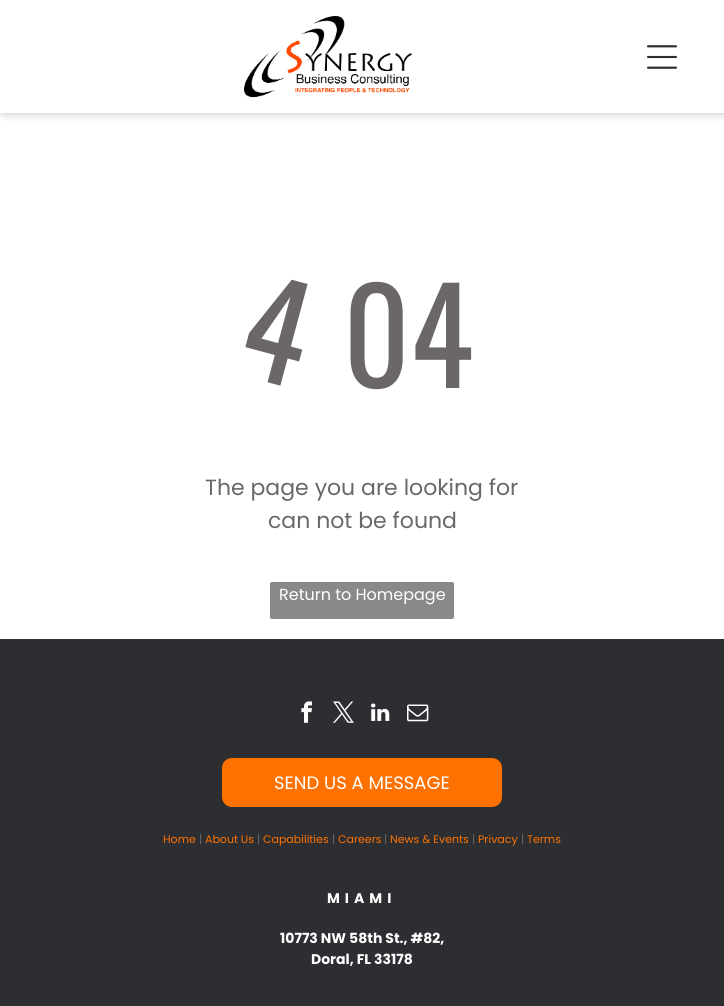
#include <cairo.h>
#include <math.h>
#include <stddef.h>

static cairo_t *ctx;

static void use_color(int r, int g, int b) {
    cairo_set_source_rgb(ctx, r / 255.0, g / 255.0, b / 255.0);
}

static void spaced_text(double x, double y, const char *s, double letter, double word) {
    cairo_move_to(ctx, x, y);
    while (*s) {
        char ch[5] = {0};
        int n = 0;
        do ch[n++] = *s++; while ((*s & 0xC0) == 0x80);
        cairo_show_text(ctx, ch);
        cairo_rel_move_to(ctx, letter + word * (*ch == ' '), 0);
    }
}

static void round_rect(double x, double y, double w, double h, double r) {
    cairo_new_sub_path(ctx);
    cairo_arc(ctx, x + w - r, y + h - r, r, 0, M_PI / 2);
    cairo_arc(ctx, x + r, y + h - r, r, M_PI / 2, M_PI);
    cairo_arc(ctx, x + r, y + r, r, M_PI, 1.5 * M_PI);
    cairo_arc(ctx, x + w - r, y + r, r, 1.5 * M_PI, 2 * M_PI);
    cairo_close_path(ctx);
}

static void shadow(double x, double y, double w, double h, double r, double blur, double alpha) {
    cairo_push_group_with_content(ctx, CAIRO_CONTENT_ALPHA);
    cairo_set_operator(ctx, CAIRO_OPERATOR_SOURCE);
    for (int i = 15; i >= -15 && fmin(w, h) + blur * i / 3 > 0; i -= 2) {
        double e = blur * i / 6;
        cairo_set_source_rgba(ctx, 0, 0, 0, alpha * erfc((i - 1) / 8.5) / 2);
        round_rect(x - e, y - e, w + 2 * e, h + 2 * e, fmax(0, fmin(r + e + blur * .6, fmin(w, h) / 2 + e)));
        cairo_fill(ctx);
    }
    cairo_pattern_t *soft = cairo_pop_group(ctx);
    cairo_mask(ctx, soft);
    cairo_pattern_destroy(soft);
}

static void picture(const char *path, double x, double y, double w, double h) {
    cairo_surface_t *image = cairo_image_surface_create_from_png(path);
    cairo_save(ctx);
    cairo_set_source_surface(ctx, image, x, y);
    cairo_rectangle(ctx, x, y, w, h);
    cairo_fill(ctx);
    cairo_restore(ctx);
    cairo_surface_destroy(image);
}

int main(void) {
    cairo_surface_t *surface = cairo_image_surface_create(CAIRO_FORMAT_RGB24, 724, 1006);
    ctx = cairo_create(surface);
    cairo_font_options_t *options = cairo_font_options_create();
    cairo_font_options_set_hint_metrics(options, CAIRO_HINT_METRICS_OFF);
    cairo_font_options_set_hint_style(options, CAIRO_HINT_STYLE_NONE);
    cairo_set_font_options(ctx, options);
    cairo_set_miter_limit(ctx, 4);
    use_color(255, 255, 255);
    cairo_paint(ctx);
    cairo_save(ctx);
    cairo_rectangle(ctx, 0, 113, 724, 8);
    cairo_clip(ctx);
    use_color(0, 0, 0);
    shadow(3, 0, 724, 113, 0, 5.5, 0.25);
    cairo_restore(ctx);
    picture("img1.png", 244, 16, 168, 82);
    picture("img2.png", 647, 45, 30, 24);
    cairo_select_font_face(ctx, "Oswald", CAIRO_FONT_SLANT_NORMAL, CAIRO_FONT_WEIGHT_NORMAL);
    cairo_set_font_size(ctx, 130);
    use_color(107, 103, 103);
    cairo_save(ctx);
    cairo_translate(ctx, 233, 373);
    cairo_rotate(ctx, 15 * M_PI / 180);
    cairo_move_to(ctx, 0, 0);
    cairo_show_text(ctx, "4");
    cairo_restore(ctx);
    cairo_move_to(ctx, 343, 388);
    cairo_show_text(ctx, "04");
    cairo_select_font_face(ctx, "Poppins", CAIRO_FONT_SLANT_NORMAL, CAIRO_FONT_WEIGHT_NORMAL);
    cairo_set_font_size(ctx, 22);
    cairo_move_to(ctx, 205, 495);
    cairo_show_text(ctx, "The page you are looking for");
    cairo_move_to(ctx, 268, 528);
    cairo_show_text(ctx, "can not be found");
    use_color(137, 137, 137);
    round_rect(270, 582, 184, 37, 2);
    cairo_fill(ctx);
    cairo_set_font_size(ctx, 16);
    use_color(255, 255, 255);
    cairo_move_to(ctx, 279, 600);
    cairo_show_text(ctx, "Return to Homepage");
    use_color(45, 46, 50);
    cairo_rectangle(ctx, 0, 639, 724, 367);
    cairo_fill(ctx);
    picture("img3.png", 301, 701, 11, 22);
    picture("img4.png", 333, 701, 21, 22);
    picture("img5.png", 371, 703, 19, 18);
    picture("img6.png", 407, 704, 22, 18);
    use_color(255, 113, 0);
    round_rect(222, 758, 280, 49, 10);
    cairo_fill(ctx);
    cairo_set_font_size(ctx, 18);
    use_color(255, 255, 255);
    cairo_move_to(ctx, 274, 789);
    cairo_show_text(ctx, "SEND US A MESSAGE");
    cairo_set_font_size(ctx, 11);
    use_color(255, 113, 0);
    cairo_move_to(ctx, 163, 843);
    cairo_show_text(ctx, "Home");
    use_color(107, 103, 103);
    cairo_move_to(ctx, 199, 843);
    cairo_show_text(ctx, "|");
    use_color(255, 113, 0);
    cairo_move_to(ctx, 205, 843);
    cairo_show_text(ctx, "About Us");
    use_color(107, 103, 103);
    cairo_move_to(ctx, 257, 843);
    cairo_show_text(ctx, "|");
    use_color(255, 113, 0);
    cairo_move_to(ctx, 263, 843);
    cairo_show_text(ctx, "Capabilities");
    use_color(107, 103, 103);
    cairo_move_to(ctx, 332, 843);
    cairo_show_text(ctx, "|");
    use_color(255, 113, 0);
    cairo_move_to(ctx, 338, 843);
    cairo_show_text(ctx, "Careers");
    use_color(107, 103, 103);
    cairo_move_to(ctx, 384, 843);
    cairo_show_text(ctx, "|");
    use_color(255, 113, 0);
    cairo_move_to(ctx, 390, 843);
    cairo_show_text(ctx, "News & Events");
    use_color(107, 103, 103);
    cairo_move_to(ctx, 472, 843);
    cairo_show_text(ctx, "|");
    use_color(255, 113, 0);
    cairo_move_to(ctx, 478, 843);
    cairo_show_text(ctx, "Privacy");
    use_color(107, 103, 103);
    cairo_move_to(ctx, 521, 843);
    cairo_show_text(ctx, "|");
    use_color(255, 113, 0);
    cairo_move_to(ctx, 527, 843);
    cairo_show_text(ctx, "Terms");
    cairo_select_font_face(ctx, "Poppins", CAIRO_FONT_SLANT_NORMAL, CAIRO_FONT_WEIGHT_BOLD);
    cairo_set_font_size(ctx, 14);
    use_color(255, 255, 255);
    spaced_text(327, 903, "MIAMI", 5, 0);
    cairo_move_to(ctx, 280, 943);
    cairo_show_text(ctx, "10773 NW 58th St., #82,");
    cairo_move_to(ctx, 311, 964);
    cairo_show_text(ctx, "Doral, FL 33178");
    cairo_surface_write_to_png(surface, "result.png");
    cairo_font_options_destroy(options);
    cairo_destroy(ctx);
    cairo_surface_destroy(surface);
    return 0;
}
